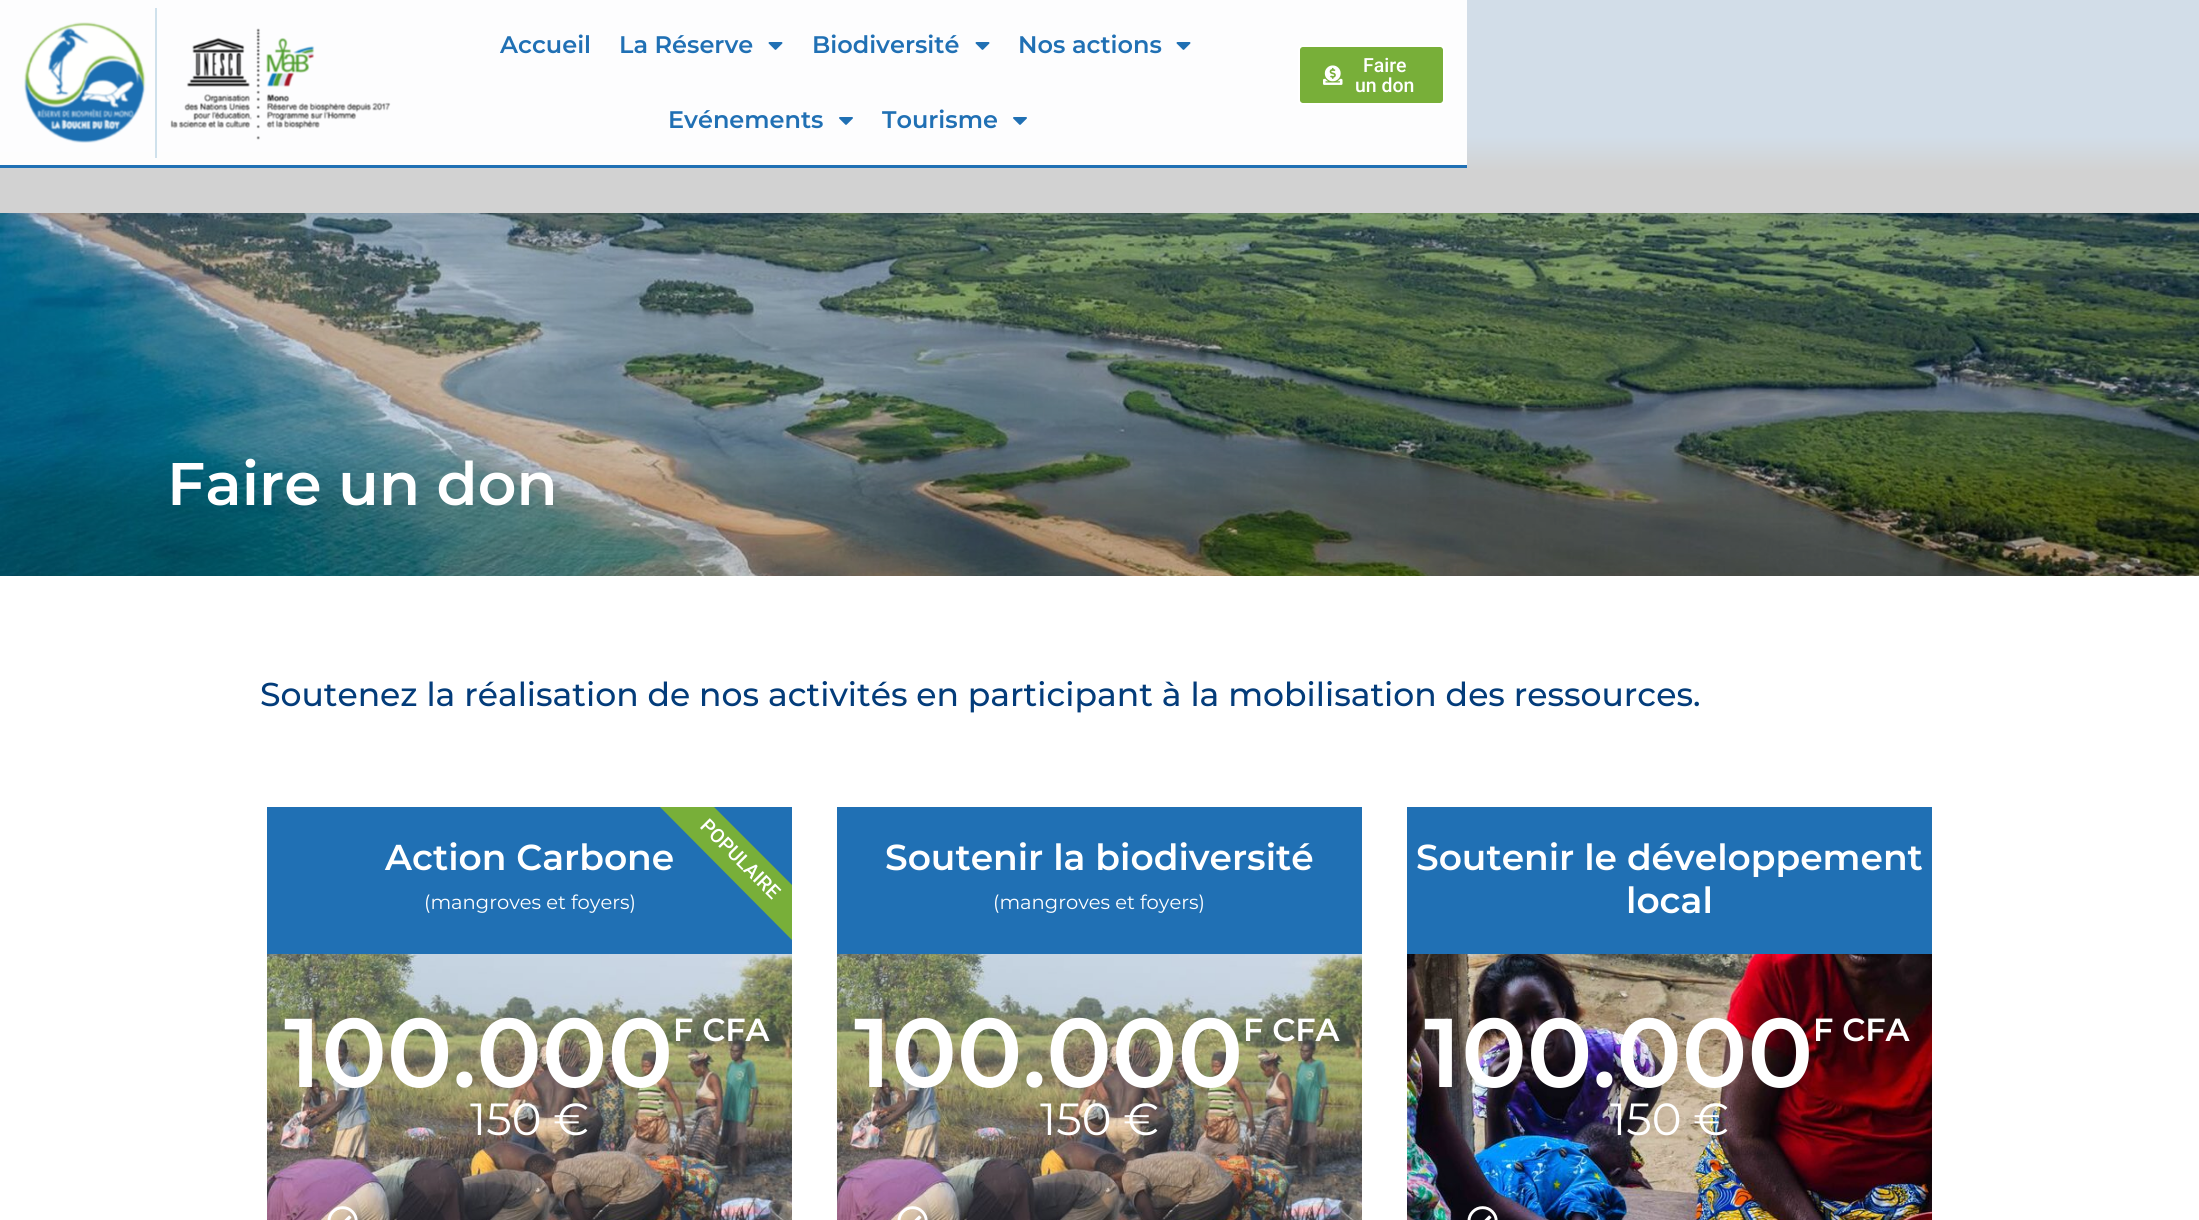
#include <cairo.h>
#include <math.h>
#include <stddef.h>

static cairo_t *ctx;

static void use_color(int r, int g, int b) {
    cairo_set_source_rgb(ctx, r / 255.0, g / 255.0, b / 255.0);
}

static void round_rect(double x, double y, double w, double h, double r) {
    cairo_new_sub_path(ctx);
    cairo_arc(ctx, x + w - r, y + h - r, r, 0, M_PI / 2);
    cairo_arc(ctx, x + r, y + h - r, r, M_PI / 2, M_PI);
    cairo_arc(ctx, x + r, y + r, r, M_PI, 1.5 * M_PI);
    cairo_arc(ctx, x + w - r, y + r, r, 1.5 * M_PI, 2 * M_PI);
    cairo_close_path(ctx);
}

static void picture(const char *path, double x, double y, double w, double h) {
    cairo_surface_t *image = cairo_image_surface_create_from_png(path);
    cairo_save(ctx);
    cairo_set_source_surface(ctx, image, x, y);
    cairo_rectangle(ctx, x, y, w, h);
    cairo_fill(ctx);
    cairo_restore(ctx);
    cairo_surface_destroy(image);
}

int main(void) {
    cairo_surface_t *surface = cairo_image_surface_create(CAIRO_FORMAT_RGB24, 2199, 1220);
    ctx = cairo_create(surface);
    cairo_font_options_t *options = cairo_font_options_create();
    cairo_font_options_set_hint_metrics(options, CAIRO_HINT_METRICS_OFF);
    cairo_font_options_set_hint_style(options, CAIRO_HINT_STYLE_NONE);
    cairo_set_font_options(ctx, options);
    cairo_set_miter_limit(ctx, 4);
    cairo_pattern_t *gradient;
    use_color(255, 255, 255);
    cairo_paint(ctx);
    gradient = cairo_pattern_create_linear(1100, 0, 1100, 213);
    cairo_pattern_add_color_stop_rgba(gradient, 0.64, 0.824, 0.867, 0.91, 1);
    cairo_pattern_add_color_stop_rgba(gradient, 0.8, 0.824, 0.824, 0.824, 1);
    cairo_set_source(ctx, gradient);
    cairo_pattern_destroy(gradient);
    cairo_rectangle(ctx, 0, 0, 2199, 213);
    cairo_fill(ctx);
    gradient = cairo_pattern_create_linear(1100, 0, 1100, 213);
    cairo_pattern_add_color_stop_rgba(gradient, 0.64, 0.992, 0.992, 0.996, 1);
    cairo_pattern_add_color_stop_rgba(gradient, 0.8, 0.992, 0.992, 0.992, 1);
    cairo_set_source(ctx, gradient);
    cairo_pattern_destroy(gradient);
    cairo_rectangle(ctx, 0, 0, 1467, 165);
    cairo_fill(ctx);
    use_color(32, 112, 180);
    cairo_rectangle(ctx, 0, 165, 1467, 3);
    cairo_fill(ctx);
    picture("img1.png", 24, 22, 122, 121);
    use_color(207, 225, 236);
    cairo_rectangle(ctx, 155, 8, 2, 150);
    cairo_fill(ctx);
    picture("img2.png", 170, 28, 221, 112);
    cairo_select_font_face(ctx, "Montserrat SemiBold", CAIRO_FONT_SLANT_NORMAL, CAIRO_FONT_WEIGHT_NORMAL);
    cairo_set_font_size(ctx, 24);
    use_color(32, 112, 180);
    cairo_move_to(ctx, 500, 53);
    cairo_show_text(ctx, "Accueil");
    cairo_move_to(ctx, 619, 53);
    cairo_show_text(ctx, "La Réserve");
    picture("img3.png", 768, 42, 15, 8);
    cairo_move_to(ctx, 812, 53);
    cairo_show_text(ctx, "Biodiversité");
    picture("img3.png", 975, 42, 15, 8);
    cairo_move_to(ctx, 1018, 53);
    cairo_show_text(ctx, "Nos actions");
    picture("img3.png", 1176, 42, 15, 8);
    cairo_move_to(ctx, 668, 128);
    cairo_show_text(ctx, "Evénements");
    picture("img4.png", 839, 117, 14, 8);
    cairo_move_to(ctx, 882, 128);
    cairo_show_text(ctx, "Tourisme");
    picture("img4.png", 1013, 117, 14, 8);
    use_color(120, 175, 57);
    round_rect(1299, 46, 145, 58, 4);
    cairo_fill_preserve(ctx);
    use_color(255, 255, 255);
    cairo_stroke(ctx);
    picture("img5.png", 1323, 65, 20, 20);
    cairo_select_font_face(ctx, "Roboto Medium", CAIRO_FONT_SLANT_NORMAL, CAIRO_FONT_WEIGHT_NORMAL);
    cairo_set_font_size(ctx, 19.5);
    cairo_move_to(ctx, 1363, 72);
    cairo_show_text(ctx, "Faire");
    cairo_move_to(ctx, 1355, 92);
    cairo_show_text(ctx, "un don");
    picture("img6.png", 0, 213, 2199, 363);
    cairo_select_font_face(ctx, "Montserrat SemiBold", CAIRO_FONT_SLANT_NORMAL, CAIRO_FONT_WEIGHT_NORMAL);
    cairo_set_font_size(ctx, 60);
    cairo_move_to(ctx, 167, 505);
    cairo_show_text(ctx, "Faire un don");
    cairo_select_font_face(ctx, "Montserrat Medium", CAIRO_FONT_SLANT_NORMAL, CAIRO_FONT_WEIGHT_NORMAL);
    cairo_set_font_size(ctx, 33);
    use_color(3, 60, 122);
    cairo_move_to(ctx, 260, 706);
    cairo_show_text(ctx, "Soutenez la réalisation de nos activités en participant à la mobilisation des ressources.");
    picture("img7.png", 267, 954, 525, 266);
    use_color(32, 112, 180);
    cairo_rectangle(ctx, 267, 807, 525, 147);
    cairo_fill(ctx);
    cairo_select_font_face(ctx, "Montserrat SemiBold", CAIRO_FONT_SLANT_NORMAL, CAIRO_FONT_WEIGHT_NORMAL);
    cairo_set_font_size(ctx, 36);
    use_color(255, 255, 255);
    cairo_move_to(ctx, 385, 870);
    cairo_show_text(ctx, "Action Carbone");
    use_color(120, 175, 57);
    cairo_new_path(ctx);
    cairo_move_to(ctx, 792, 940);
    cairo_line_to(ctx, 660, 807);
    cairo_line_to(ctx, 714, 807);
    cairo_line_to(ctx, 792, 885);
    cairo_close_path(ctx);
    cairo_fill(ctx);
    cairo_select_font_face(ctx, "Roboto Medium", CAIRO_FONT_SLANT_NORMAL, CAIRO_FONT_WEIGHT_NORMAL);
    cairo_set_font_size(ctx, 19.5);
    use_color(255, 255, 255);
    cairo_save(ctx);
    cairo_translate(ctx, 699, 827);
    cairo_rotate(ctx, 45 * M_PI / 180);
    cairo_move_to(ctx, 0, 0);
    cairo_show_text(ctx, "POPULAIRE");
    cairo_restore(ctx);
    cairo_select_font_face(ctx, "Montserrat", CAIRO_FONT_SLANT_NORMAL, CAIRO_FONT_WEIGHT_NORMAL);
    cairo_move_to(ctx, 424, 909);
    cairo_show_text(ctx, "(mangroves et foyers)");
    cairo_select_font_face(ctx, "Montserrat SemiBold", CAIRO_FONT_SLANT_NORMAL, CAIRO_FONT_WEIGHT_NORMAL);
    cairo_set_font_size(ctx, 97.5);
    cairo_move_to(ctx, 284, 1087);
    cairo_show_text(ctx, "100.000");
    cairo_set_font_size(ctx, 32);
    cairo_move_to(ctx, 673, 1041);
    cairo_show_text(ctx, "F CFA");
    cairo_select_font_face(ctx, "Montserrat", CAIRO_FONT_SLANT_NORMAL, CAIRO_FONT_WEIGHT_NORMAL);
    cairo_set_font_size(ctx, 45);
    cairo_move_to(ctx, 470, 1135);
    cairo_show_text(ctx, "150 €");
    picture("img8.png", 327, 1206, 31, 14);
    picture("img9.png", 837, 954, 525, 266);
    use_color(32, 112, 180);
    cairo_rectangle(ctx, 837, 807, 525, 147);
    cairo_fill(ctx);
    cairo_select_font_face(ctx, "Montserrat SemiBold", CAIRO_FONT_SLANT_NORMAL, CAIRO_FONT_WEIGHT_NORMAL);
    cairo_set_font_size(ctx, 36);
    use_color(255, 255, 255);
    cairo_move_to(ctx, 885, 870);
    cairo_show_text(ctx, "Soutenir la biodiversité");
    cairo_select_font_face(ctx, "Montserrat", CAIRO_FONT_SLANT_NORMAL, CAIRO_FONT_WEIGHT_NORMAL);
    cairo_set_font_size(ctx, 19.5);
    cairo_move_to(ctx, 993, 909);
    cairo_show_text(ctx, "(mangroves et foyers)");
    cairo_select_font_face(ctx, "Montserrat SemiBold", CAIRO_FONT_SLANT_NORMAL, CAIRO_FONT_WEIGHT_NORMAL);
    cairo_set_font_size(ctx, 97.5);
    cairo_move_to(ctx, 854, 1087);
    cairo_show_text(ctx, "100.000");
    cairo_set_font_size(ctx, 32);
    cairo_move_to(ctx, 1243, 1041);
    cairo_show_text(ctx, "F CFA");
    cairo_select_font_face(ctx, "Montserrat", CAIRO_FONT_SLANT_NORMAL, CAIRO_FONT_WEIGHT_NORMAL);
    cairo_set_font_size(ctx, 45);
    cairo_move_to(ctx, 1040, 1135);
    cairo_show_text(ctx, "150 €");
    picture("img8.png", 897, 1206, 31, 14);
    picture("img10.png", 1407, 954, 525, 266);
    use_color(32, 112, 180);
    cairo_rectangle(ctx, 1407, 807, 525, 147);
    cairo_fill(ctx);
    cairo_select_font_face(ctx, "Montserrat SemiBold", CAIRO_FONT_SLANT_NORMAL, CAIRO_FONT_WEIGHT_NORMAL);
    cairo_set_font_size(ctx, 36);
    use_color(255, 255, 255);
    cairo_move_to(ctx, 1416, 870);
    cairo_show_text(ctx, "Soutenir le développement");
    cairo_move_to(ctx, 1626, 913);
    cairo_show_text(ctx, "local");
    cairo_set_font_size(ctx, 97.5);
    cairo_move_to(ctx, 1424, 1087);
    cairo_show_text(ctx, "100.000");
    cairo_set_font_size(ctx, 32);
    cairo_move_to(ctx, 1813, 1041);
    cairo_show_text(ctx, "F CFA");
    cairo_select_font_face(ctx, "Montserrat", CAIRO_FONT_SLANT_NORMAL, CAIRO_FONT_WEIGHT_NORMAL);
    cairo_set_font_size(ctx, 45);
    cairo_move_to(ctx, 1610, 1135);
    cairo_show_text(ctx, "150 €");
    picture("img11.png", 1467, 1206, 31, 14);
    cairo_surface_write_to_png(surface, "result.png");
    cairo_font_options_destroy(options);
    cairo_destroy(ctx);
    cairo_surface_destroy(surface);
    return 0;
}
